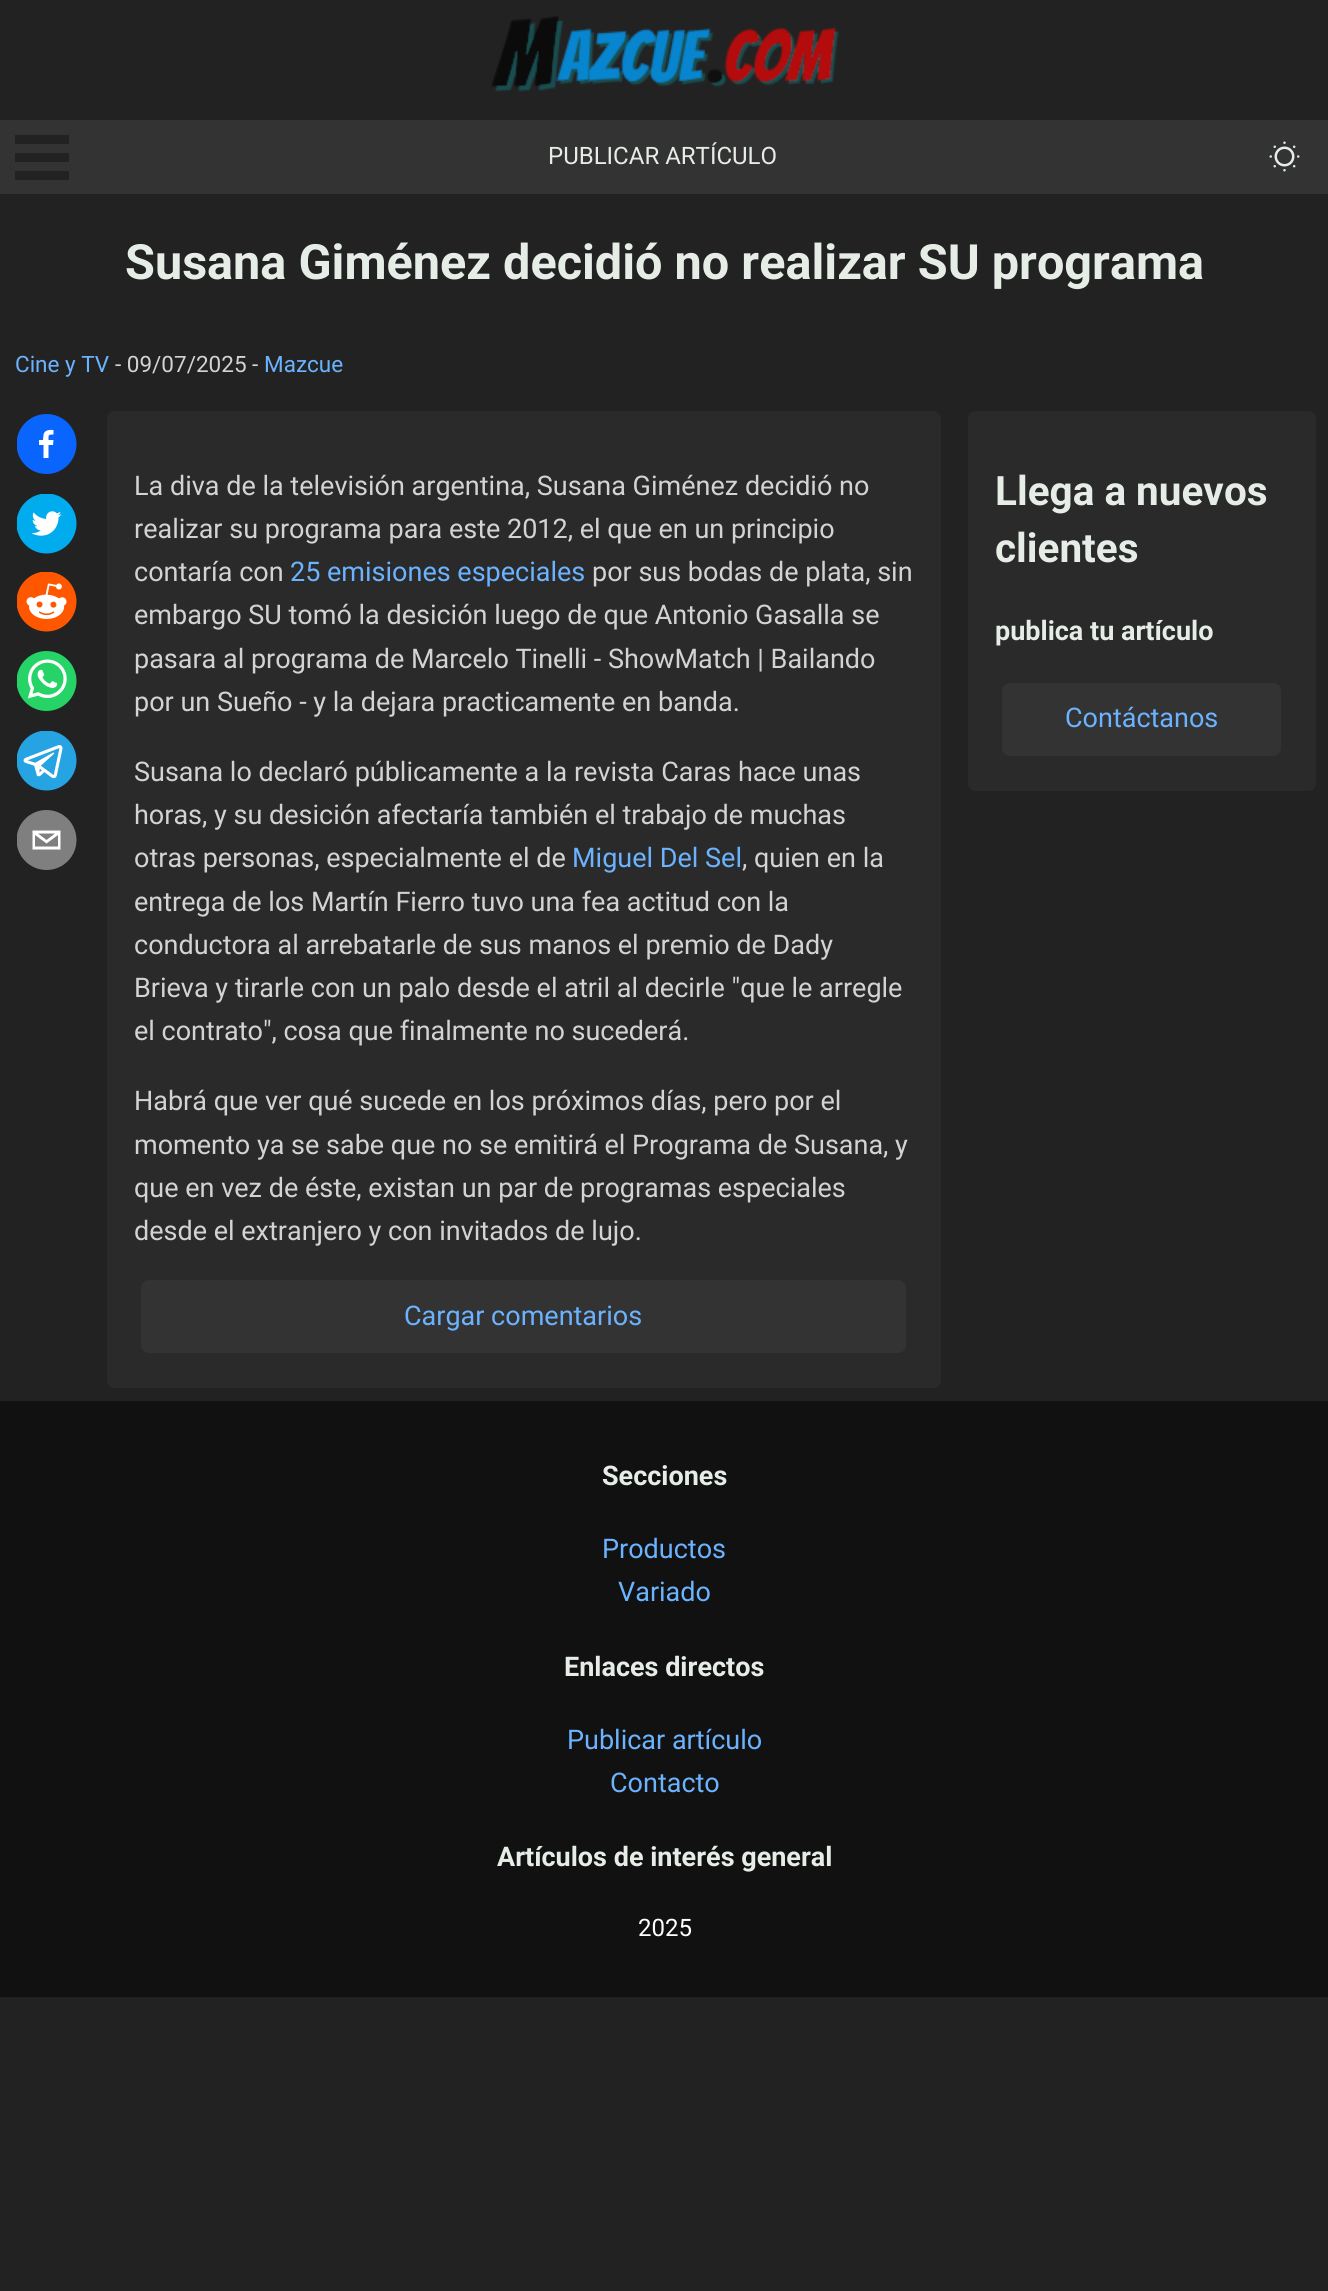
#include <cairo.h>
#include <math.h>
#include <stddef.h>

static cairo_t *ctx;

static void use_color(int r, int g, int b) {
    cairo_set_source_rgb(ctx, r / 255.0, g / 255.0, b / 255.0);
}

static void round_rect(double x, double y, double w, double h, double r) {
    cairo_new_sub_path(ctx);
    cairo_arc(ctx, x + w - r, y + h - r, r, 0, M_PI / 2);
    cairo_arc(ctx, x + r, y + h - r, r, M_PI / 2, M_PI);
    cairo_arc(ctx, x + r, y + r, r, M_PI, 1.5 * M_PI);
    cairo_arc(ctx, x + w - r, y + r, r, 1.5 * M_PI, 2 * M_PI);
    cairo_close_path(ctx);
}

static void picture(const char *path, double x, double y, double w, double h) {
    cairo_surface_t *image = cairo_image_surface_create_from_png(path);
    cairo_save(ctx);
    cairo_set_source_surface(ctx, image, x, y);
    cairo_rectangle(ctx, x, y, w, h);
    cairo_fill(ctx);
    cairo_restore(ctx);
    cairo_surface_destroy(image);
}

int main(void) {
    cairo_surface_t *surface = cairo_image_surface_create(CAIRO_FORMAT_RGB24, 1328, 2291);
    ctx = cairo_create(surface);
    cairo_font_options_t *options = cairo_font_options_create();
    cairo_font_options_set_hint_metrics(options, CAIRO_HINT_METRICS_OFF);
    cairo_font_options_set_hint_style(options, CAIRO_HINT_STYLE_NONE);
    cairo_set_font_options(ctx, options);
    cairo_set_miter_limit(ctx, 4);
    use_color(34, 34, 34);
    cairo_paint(ctx);
    picture("img1.png", 491, 16, 348, 76);
    use_color(51, 51, 51);
    cairo_rectangle(ctx, 0, 120, 1328, 74);
    cairo_fill(ctx);
    use_color(34, 34, 34);
    cairo_rectangle(ctx, 15, 135, 54, 9);
    cairo_fill(ctx);
    cairo_rectangle(ctx, 15, 153, 54, 9);
    cairo_fill(ctx);
    cairo_rectangle(ctx, 15, 171, 54, 9);
    cairo_fill(ctx);
    cairo_select_font_face(ctx, "Roboto", CAIRO_FONT_SLANT_NORMAL, CAIRO_FONT_WEIGHT_NORMAL);
    cairo_set_font_size(ctx, 24);
    use_color(230, 237, 231);
    cairo_move_to(ctx, 548, 164);
    cairo_show_text(ctx, "PUBLICAR ARTÍCULO");
    picture("img2.png", 1269, 141, 31, 31);
    cairo_select_font_face(ctx, "Roboto", CAIRO_FONT_SLANT_NORMAL, CAIRO_FONT_WEIGHT_BOLD);
    cairo_set_font_size(ctx, 48.6);
    cairo_move_to(ctx, 125, 279);
    cairo_show_text(ctx, "Susana Giménez decidió no realizar SU programa");
    cairo_select_font_face(ctx, "Roboto", CAIRO_FONT_SLANT_NORMAL, CAIRO_FONT_WEIGHT_NORMAL);
    cairo_set_font_size(ctx, 22.5);
    use_color(107, 179, 255);
    cairo_move_to(ctx, 15, 372);
    cairo_show_text(ctx, "Cine y TV");
    use_color(211, 211, 211);
    cairo_move_to(ctx, 115, 372);
    cairo_show_text(ctx, "- 09/07/2025 -");
    use_color(107, 179, 255);
    cairo_move_to(ctx, 264, 372);
    cairo_show_text(ctx, "Mazcue");
    cairo_save(ctx);
    cairo_rectangle(ctx, 17, 414, 60, 60);
    cairo_clip(ctx);
    use_color(9, 101, 254);
    cairo_arc(ctx, 46.5, 444, 30, 0, 2 * M_PI);
    cairo_fill(ctx);
    cairo_restore(ctx);
    use_color(255, 255, 255);
    cairo_new_path(ctx);
    cairo_move_to(ctx, 48.5, 458);
    cairo_line_to(ctx, 48.5, 445);
    cairo_line_to(ctx, 53, 445);
    cairo_line_to(ctx, 53.5, 440);
    cairo_line_to(ctx, 48.5, 440);
    cairo_curve_to(ctx, 48.5, 435, 48, 434.5, 53.5, 434.5);
    cairo_line_to(ctx, 53.5, 430);
    cairo_curve_to(ctx, 49.5, 429.5, 44, 430, 43.5, 435);
    cairo_line_to(ctx, 43, 440);
    cairo_line_to(ctx, 39, 440);
    cairo_line_to(ctx, 39, 445);
    cairo_line_to(ctx, 43.5, 445);
    cairo_line_to(ctx, 43.5, 458);
    cairo_close_path(ctx);
    cairo_fill(ctx);
    picture("img3.png", 17, 494, 60, 60);
    picture("img4.png", 17, 572, 60, 60);
    picture("img5.png", 17, 651, 60, 60);
    picture("img6.png", 17, 731, 60, 60);
    cairo_save(ctx);
    cairo_rectangle(ctx, 17, 810, 60, 60);
    cairo_clip(ctx);
    use_color(127, 127, 127);
    cairo_arc(ctx, 46.5, 840, 30, 0, 2 * M_PI);
    cairo_fill(ctx);
    cairo_restore(ctx);
    cairo_new_path(ctx);
    cairo_move_to(ctx, 32.5, 830.5);
    cairo_line_to(ctx, 32.5, 849.5);
    cairo_line_to(ctx, 60.5, 849.5);
    cairo_line_to(ctx, 60.5, 830.5);
    cairo_close_path(ctx);
    cairo_move_to(ctx, 55, 833.5);
    cairo_line_to(ctx, 46.5, 840);
    cairo_line_to(ctx, 38, 833.5);
    cairo_close_path(ctx);
    cairo_move_to(ctx, 35, 846.5);
    cairo_line_to(ctx, 35, 835);
    cairo_line_to(ctx, 46.5, 843.5);
    cairo_line_to(ctx, 58, 835);
    cairo_line_to(ctx, 58, 846.5);
    cairo_close_path(ctx);
    cairo_fill(ctx);
    use_color(42, 42, 42);
    round_rect(107, 411, 834, 977, 8);
    cairo_fill(ctx);
    cairo_set_font_size(ctx, 27);
    use_color(211, 211, 211);
    cairo_move_to(ctx, 134, 495);
    cairo_show_text(ctx, "La diva de la televisión argentina, Susana Giménez decidió no");
    cairo_move_to(ctx, 134, 538);
    cairo_show_text(ctx, "realizar su programa para este 2012, el que en un principio");
    cairo_move_to(ctx, 134, 581);
    cairo_show_text(ctx, "contaría con");
    use_color(107, 179, 255);
    cairo_move_to(ctx, 290, 581);
    cairo_show_text(ctx, "25 emisiones especiales");
    use_color(211, 211, 211);
    cairo_move_to(ctx, 592, 581);
    cairo_show_text(ctx, "por sus bodas de plata, sin");
    cairo_move_to(ctx, 134, 624);
    cairo_show_text(ctx, "embargo SU tomó la desición luego de que Antonio Gasalla se");
    cairo_move_to(ctx, 134, 668);
    cairo_show_text(ctx, "pasara al programa de Marcelo Tinelli - ShowMatch | Bailando");
    cairo_move_to(ctx, 134, 711);
    cairo_show_text(ctx, "por un Sueño - y la dejara practicamente en banda.");
    cairo_move_to(ctx, 134, 781);
    cairo_show_text(ctx, "Susana lo declaró públicamente a la revista Caras hace unas");
    cairo_move_to(ctx, 134, 824);
    cairo_show_text(ctx, "horas, y su desición afectaría también el trabajo de muchas");
    cairo_move_to(ctx, 134, 867);
    cairo_show_text(ctx, "otras personas, especialmente el de");
    use_color(107, 179, 255);
    cairo_move_to(ctx, 572, 867);
    cairo_show_text(ctx, "Miguel Del Sel");
    use_color(211, 211, 211);
    cairo_move_to(ctx, 742, 867);
    cairo_show_text(ctx, ", quien en la");
    cairo_move_to(ctx, 134, 911);
    cairo_show_text(ctx, "entrega de los Martín Fierro tuvo una fea actitud con la");
    cairo_move_to(ctx, 134, 954);
    cairo_show_text(ctx, "conductora al arrebatarle de sus manos el premio de Dady");
    cairo_move_to(ctx, 134, 997);
    cairo_show_text(ctx, "Brieva y tirarle con un palo desde el atril al decirle \"que le arregle");
    cairo_move_to(ctx, 134, 1040);
    cairo_show_text(ctx, "el contrato\", cosa que finalmente no sucederá.");
    cairo_move_to(ctx, 134, 1110);
    cairo_show_text(ctx, "Habrá que ver qué sucede en los próximos días, pero por el");
    cairo_move_to(ctx, 134, 1154);
    cairo_show_text(ctx, "momento ya se sabe que no se emitirá el Programa de Susana, y");
    cairo_move_to(ctx, 134, 1197);
    cairo_show_text(ctx, "que en vez de éste, existan un par de programas especiales");
    cairo_move_to(ctx, 134, 1240);
    cairo_show_text(ctx, "desde el extranjero y con invitados de lujo.");
    use_color(51, 51, 51);
    round_rect(141, 1280, 765, 73, 8);
    cairo_fill(ctx);
    use_color(107, 179, 255);
    cairo_move_to(ctx, 404, 1325);
    cairo_show_text(ctx, "Cargar comentarios");
    use_color(42, 42, 42);
    round_rect(968, 411, 348, 380, 8);
    cairo_fill(ctx);
    cairo_select_font_face(ctx, "Roboto", CAIRO_FONT_SLANT_NORMAL, CAIRO_FONT_WEIGHT_BOLD);
    cairo_set_font_size(ctx, 40.5);
    use_color(230, 237, 231);
    cairo_move_to(ctx, 995, 505);
    cairo_show_text(ctx, "Llega a nuevos");
    cairo_move_to(ctx, 995, 562);
    cairo_show_text(ctx, "clientes");
    cairo_set_font_size(ctx, 27);
    cairo_move_to(ctx, 995, 640);
    cairo_show_text(ctx, "publica tu artículo");
    use_color(51, 51, 51);
    round_rect(1002, 683, 279, 73, 8);
    cairo_fill(ctx);
    cairo_select_font_face(ctx, "Roboto", CAIRO_FONT_SLANT_NORMAL, CAIRO_FONT_WEIGHT_NORMAL);
    use_color(107, 179, 255);
    cairo_move_to(ctx, 1065, 727);
    cairo_show_text(ctx, "Contáctanos");
    use_color(17, 17, 17);
    cairo_rectangle(ctx, 0, 1401, 1328, 596);
    cairo_fill(ctx);
    cairo_select_font_face(ctx, "Roboto", CAIRO_FONT_SLANT_NORMAL, CAIRO_FONT_WEIGHT_BOLD);
    use_color(230, 237, 231);
    cairo_move_to(ctx, 602, 1485);
    cairo_show_text(ctx, "Secciones");
    cairo_select_font_face(ctx, "Roboto", CAIRO_FONT_SLANT_NORMAL, CAIRO_FONT_WEIGHT_NORMAL);
    use_color(107, 179, 255);
    cairo_move_to(ctx, 602, 1558);
    cairo_show_text(ctx, "Productos");
    cairo_move_to(ctx, 618, 1601);
    cairo_show_text(ctx, "Variado");
    cairo_select_font_face(ctx, "Roboto", CAIRO_FONT_SLANT_NORMAL, CAIRO_FONT_WEIGHT_BOLD);
    use_color(230, 237, 231);
    cairo_move_to(ctx, 564, 1676);
    cairo_show_text(ctx, "Enlaces directos");
    cairo_select_font_face(ctx, "Roboto", CAIRO_FONT_SLANT_NORMAL, CAIRO_FONT_WEIGHT_NORMAL);
    use_color(107, 179, 255);
    cairo_move_to(ctx, 567, 1749);
    cairo_show_text(ctx, "Publicar artículo");
    cairo_move_to(ctx, 610, 1792);
    cairo_show_text(ctx, "Contacto");
    cairo_select_font_face(ctx, "Roboto", CAIRO_FONT_SLANT_NORMAL, CAIRO_FONT_WEIGHT_BOLD);
    use_color(230, 237, 231);
    cairo_move_to(ctx, 497, 1866);
    cairo_show_text(ctx, "Artículos de interés general");
    cairo_select_font_face(ctx, "Roboto", CAIRO_FONT_SLANT_NORMAL, CAIRO_FONT_WEIGHT_NORMAL);
    cairo_set_font_size(ctx, 24);
    use_color(255, 255, 255);
    cairo_move_to(ctx, 638, 1936);
    cairo_show_text(ctx, "2025");
    cairo_surface_write_to_png(surface, "result.png");
    cairo_font_options_destroy(options);
    cairo_destroy(ctx);
    cairo_surface_destroy(surface);
    return 0;
}
